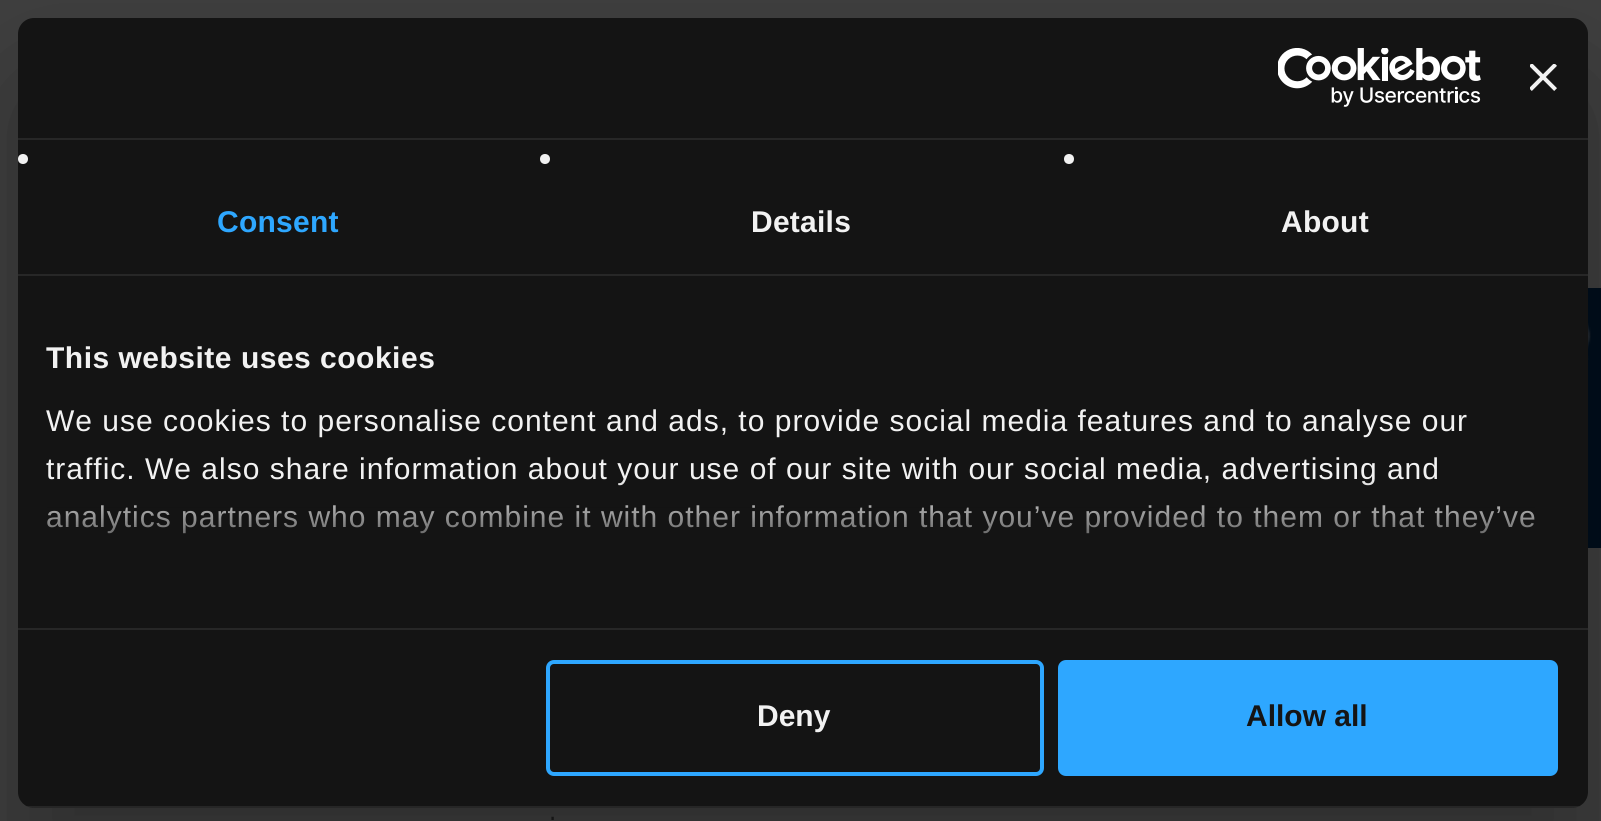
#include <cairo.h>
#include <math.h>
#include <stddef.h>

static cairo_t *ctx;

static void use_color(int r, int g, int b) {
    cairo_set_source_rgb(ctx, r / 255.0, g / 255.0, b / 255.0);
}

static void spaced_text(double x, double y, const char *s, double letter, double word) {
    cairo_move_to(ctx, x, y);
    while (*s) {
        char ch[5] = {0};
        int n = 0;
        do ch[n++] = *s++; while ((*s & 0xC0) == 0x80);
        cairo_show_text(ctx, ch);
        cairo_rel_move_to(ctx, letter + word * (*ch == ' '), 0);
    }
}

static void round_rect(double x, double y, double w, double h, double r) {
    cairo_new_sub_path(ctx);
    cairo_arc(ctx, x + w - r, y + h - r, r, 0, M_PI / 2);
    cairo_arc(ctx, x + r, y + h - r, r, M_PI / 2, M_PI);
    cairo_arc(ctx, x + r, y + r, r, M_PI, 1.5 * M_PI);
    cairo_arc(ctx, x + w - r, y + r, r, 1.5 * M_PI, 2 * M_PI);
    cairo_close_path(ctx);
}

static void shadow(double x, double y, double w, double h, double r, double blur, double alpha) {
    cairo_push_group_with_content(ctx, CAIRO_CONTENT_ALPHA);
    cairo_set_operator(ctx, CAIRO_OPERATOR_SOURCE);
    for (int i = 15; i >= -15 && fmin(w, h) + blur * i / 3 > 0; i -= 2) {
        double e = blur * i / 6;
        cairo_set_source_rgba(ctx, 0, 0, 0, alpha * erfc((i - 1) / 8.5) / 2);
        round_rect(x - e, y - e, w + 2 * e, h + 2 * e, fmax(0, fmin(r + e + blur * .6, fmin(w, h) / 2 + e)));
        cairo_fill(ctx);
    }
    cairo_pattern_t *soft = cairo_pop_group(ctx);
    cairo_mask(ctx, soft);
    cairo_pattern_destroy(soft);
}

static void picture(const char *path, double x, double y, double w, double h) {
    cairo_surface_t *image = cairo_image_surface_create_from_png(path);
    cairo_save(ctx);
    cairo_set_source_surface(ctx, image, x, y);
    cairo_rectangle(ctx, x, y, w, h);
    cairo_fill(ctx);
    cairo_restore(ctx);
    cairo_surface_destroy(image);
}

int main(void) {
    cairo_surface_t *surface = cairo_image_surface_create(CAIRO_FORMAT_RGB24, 1601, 821);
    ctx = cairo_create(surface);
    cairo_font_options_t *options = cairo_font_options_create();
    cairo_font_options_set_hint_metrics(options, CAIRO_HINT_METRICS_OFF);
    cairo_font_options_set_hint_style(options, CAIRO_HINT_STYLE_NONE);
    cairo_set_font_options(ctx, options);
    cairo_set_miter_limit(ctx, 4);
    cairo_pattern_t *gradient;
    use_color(64, 64, 64);
    cairo_paint(ctx);
    use_color(0, 14, 28);
    cairo_rectangle(ctx, 1588, 288, 13, 260);
    cairo_fill(ctx);
    picture("img3.png", 1588, 323, 3, 37);
    use_color(0, 0, 0);
    shadow(18, 82, 1570, 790, 16, 68, 0.3);
    use_color(20, 20, 20);
    round_rect(18, 18, 1570, 790, 16);
    cairo_fill(ctx);
    use_color(39, 39, 39);
    cairo_rectangle(ctx, 18, 138, 1570, 2);
    cairo_fill(ctx);
    picture("img1.png", 1278, 48, 203, 59);
    picture("img2.png", 1530, 64, 27, 27);
    cairo_rectangle(ctx, 18, 274, 1570, 2);
    cairo_fill(ctx);
    use_color(242, 242, 242);
    cairo_arc(ctx, 23, 159, 5, 0, 2 * M_PI);
    cairo_fill(ctx);
    cairo_select_font_face(ctx, "Liberation Sans", CAIRO_FONT_SLANT_NORMAL, CAIRO_FONT_WEIGHT_BOLD);
    cairo_set_font_size(ctx, 30);
    use_color(46, 167, 255);
    spaced_text(217, 232, "Consent", 0.25, 0);
    use_color(242, 242, 242);
    cairo_new_path(ctx);
    cairo_arc(ctx, 545, 159, 5, 0, 2 * M_PI);
    cairo_fill(ctx);
    spaced_text(751, 232, "Details", 0.25, 0);
    cairo_new_path(ctx);
    cairo_arc(ctx, 1069, 159, 5, 0, 2 * M_PI);
    cairo_fill(ctx);
    spaced_text(1281, 232, "About", 0.25, 0);
    use_color(39, 39, 39);
    cairo_rectangle(ctx, 18, 628, 1570, 2);
    cairo_fill(ctx);
    use_color(242, 242, 242);
    spaced_text(46, 368, "This website uses cookies", 0.5, 0);
    cairo_select_font_face(ctx, "Liberation Sans", CAIRO_FONT_SLANT_NORMAL, CAIRO_FONT_WEIGHT_NORMAL);
    spaced_text(46, 431, "We use cookies to personalise content and ads, to provide social media features and to analyse our", 1, 0);
    spaced_text(46, 479, "traffic. We also share information about your use of our site with our social media, advertising and", 1, 0);
    spaced_text(46, 527, "analytics partners who may combine it with other information that you’ve provided to them or that they’ve", 1, 0);
    gradient = cairo_pattern_create_linear(789, 627, 789, 477);
    cairo_pattern_add_color_stop_rgba(gradient, 0, 0.078, 0.078, 0.078, 1);
    cairo_pattern_add_color_stop_rgba(gradient, 0.5, 0.078, 0.078, 0.078, 0.8);
    cairo_pattern_add_color_stop_rgba(gradient, 1, 0.078, 0.078, 0.078, 0);
    cairo_set_source(ctx, gradient);
    cairo_pattern_destroy(gradient);
    cairo_rectangle(ctx, 47, 479, 1488, 55);
    cairo_fill(ctx);
    cairo_save(ctx);
    round_rect(18, 18, 1570, 790, 16);
    cairo_clip(ctx);
    cairo_set_source_rgba(ctx, 1, 1, 1, 0.08);
    cairo_rectangle(ctx, 27, 806, 1552, 2);
    cairo_fill(ctx);
    cairo_restore(ctx);
    round_rect(548, 662, 494, 112, 6);
    use_color(46, 167, 255);
    cairo_set_line_width(ctx, 4);
    cairo_stroke(ctx);
    cairo_select_font_face(ctx, "Liberation Sans", CAIRO_FONT_SLANT_NORMAL, CAIRO_FONT_WEIGHT_BOLD);
    use_color(242, 242, 242);
    cairo_move_to(ctx, 757, 726);
    cairo_show_text(ctx, "Deny");
    use_color(46, 167, 255);
    round_rect(1060, 662, 496, 112, 6);
    cairo_fill_preserve(ctx);
    cairo_stroke(ctx);
    use_color(21, 21, 21);
    cairo_move_to(ctx, 1246, 726);
    cairo_show_text(ctx, "Allow all");
    cairo_select_font_face(ctx, "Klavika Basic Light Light", CAIRO_FONT_SLANT_NORMAL, CAIRO_FONT_WEIGHT_NORMAL);
    cairo_set_font_size(ctx, 38);
    cairo_move_to(ctx, 548, 820);
    cairo_show_text(ctx, ".");
    cairo_surface_write_to_png(surface, "result.png");
    cairo_font_options_destroy(options);
    cairo_destroy(ctx);
    cairo_surface_destroy(surface);
    return 0;
}
